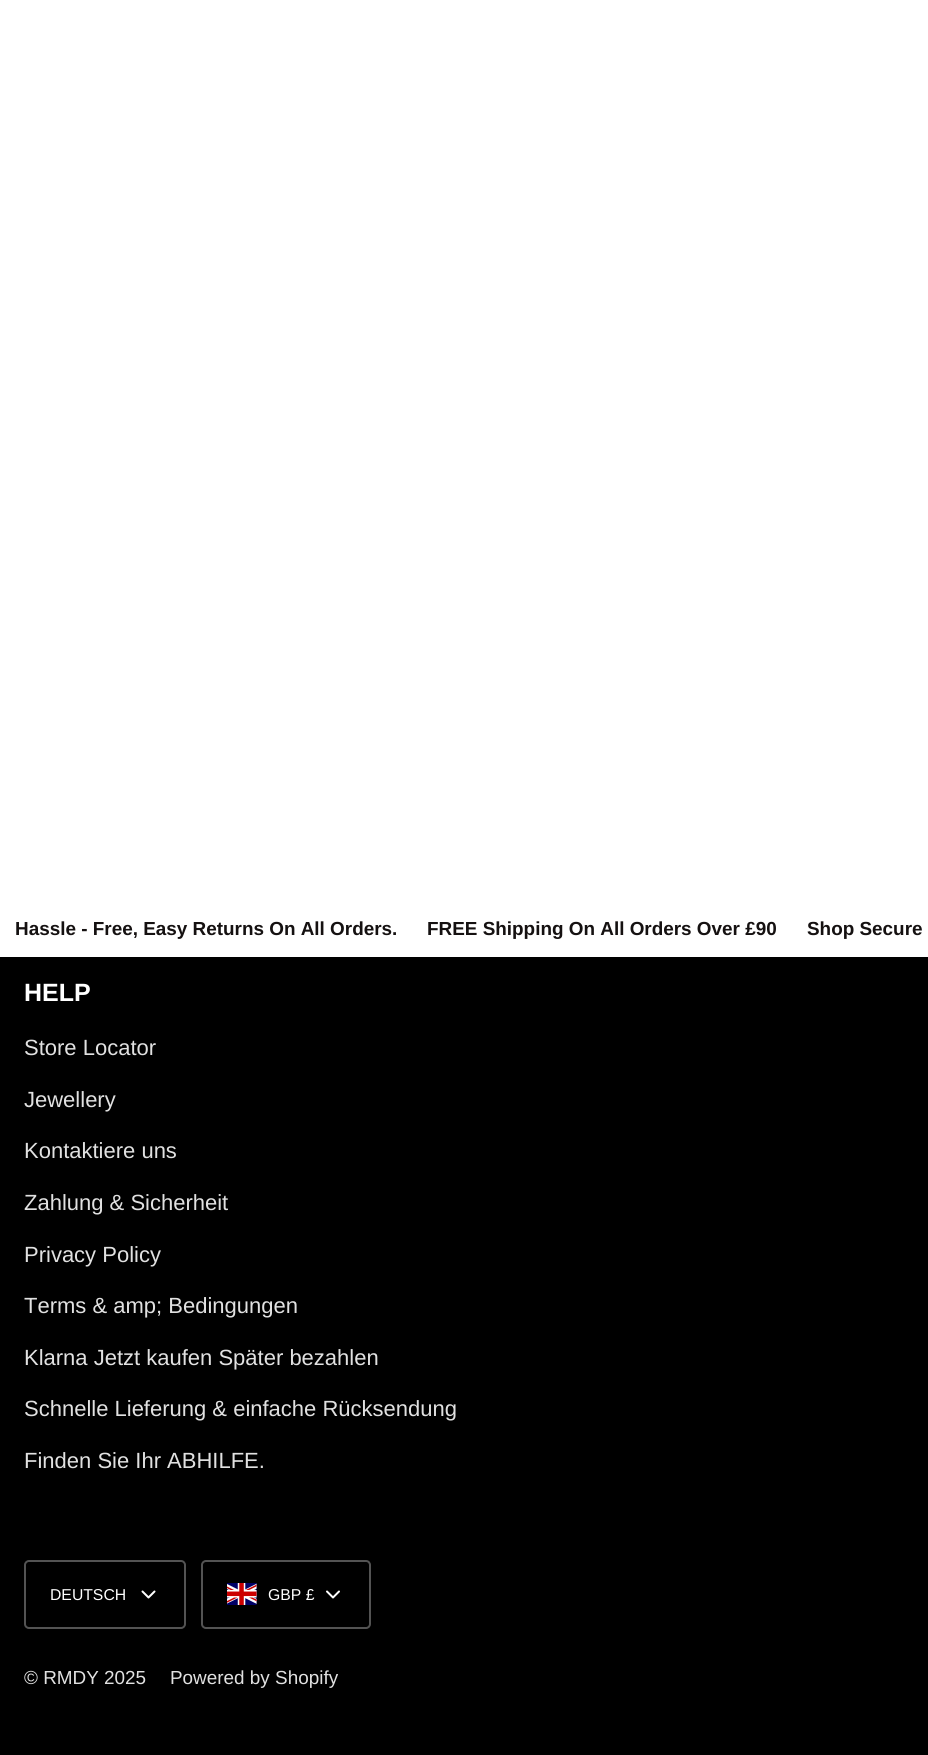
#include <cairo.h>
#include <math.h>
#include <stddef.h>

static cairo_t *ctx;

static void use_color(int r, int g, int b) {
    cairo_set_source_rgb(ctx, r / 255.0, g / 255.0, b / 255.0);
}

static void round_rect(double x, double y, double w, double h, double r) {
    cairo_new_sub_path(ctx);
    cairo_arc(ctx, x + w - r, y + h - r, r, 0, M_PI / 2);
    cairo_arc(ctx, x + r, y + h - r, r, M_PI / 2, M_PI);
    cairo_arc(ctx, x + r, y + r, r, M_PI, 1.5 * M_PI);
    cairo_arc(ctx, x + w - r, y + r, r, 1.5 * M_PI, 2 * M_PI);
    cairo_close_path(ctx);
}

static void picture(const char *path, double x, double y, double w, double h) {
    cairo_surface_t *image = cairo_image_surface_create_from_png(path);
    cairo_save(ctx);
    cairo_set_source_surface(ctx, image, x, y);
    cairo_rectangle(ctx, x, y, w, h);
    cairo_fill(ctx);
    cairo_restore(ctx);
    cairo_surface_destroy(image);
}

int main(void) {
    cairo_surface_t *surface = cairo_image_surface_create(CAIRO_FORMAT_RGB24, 928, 1755);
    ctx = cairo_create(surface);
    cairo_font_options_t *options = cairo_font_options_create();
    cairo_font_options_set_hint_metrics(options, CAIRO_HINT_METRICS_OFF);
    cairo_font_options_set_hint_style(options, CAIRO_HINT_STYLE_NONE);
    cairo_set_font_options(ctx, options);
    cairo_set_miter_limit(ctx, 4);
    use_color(255, 255, 255);
    cairo_paint(ctx);
    cairo_select_font_face(ctx, "Liberation Sans", CAIRO_FONT_SLANT_NORMAL, CAIRO_FONT_WEIGHT_BOLD);
    cairo_set_font_size(ctx, 18.9);
    use_color(21, 17, 17);
    cairo_move_to(ctx, 15, 935);
    cairo_show_text(ctx, "Hassle - Free, Easy Returns On All Orders.");
    cairo_move_to(ctx, 427, 935);
    cairo_show_text(ctx, "FREE Shipping On All Orders Over £90");
    cairo_move_to(ctx, 807, 935);
    cairo_show_text(ctx, "Shop Secure");
    use_color(0, 0, 0);
    cairo_rectangle(ctx, 0, 957, 928, 798);
    cairo_fill(ctx);
    cairo_set_font_size(ctx, 25);
    use_color(255, 255, 255);
    cairo_move_to(ctx, 24, 1001);
    cairo_show_text(ctx, "HELP");
    cairo_select_font_face(ctx, "Liberation Sans", CAIRO_FONT_SLANT_NORMAL, CAIRO_FONT_WEIGHT_NORMAL);
    cairo_set_font_size(ctx, 22);
    use_color(225, 225, 225);
    cairo_move_to(ctx, 24, 1055);
    cairo_show_text(ctx, "Store Locator");
    cairo_move_to(ctx, 24, 1107);
    cairo_show_text(ctx, "Jewellery");
    cairo_move_to(ctx, 24, 1158);
    cairo_show_text(ctx, "Kontaktiere uns");
    cairo_move_to(ctx, 24, 1210);
    cairo_show_text(ctx, "Zahlung & Sicherheit");
    cairo_move_to(ctx, 24, 1262);
    cairo_show_text(ctx, "Privacy Policy");
    cairo_move_to(ctx, 24, 1313);
    cairo_show_text(ctx, "Terms & amp; Bedingungen");
    cairo_move_to(ctx, 24, 1365);
    cairo_show_text(ctx, "Klarna Jetzt kaufen Später bezahlen");
    cairo_move_to(ctx, 24, 1416);
    cairo_show_text(ctx, "Schnelle Lieferung & einfache Rücksendung");
    cairo_move_to(ctx, 24, 1468);
    cairo_show_text(ctx, "Finden Sie Ihr ABHILFE.");
    round_rect(25, 1561, 160, 67, 4);
    use_color(83, 83, 83);
    cairo_stroke(ctx);
    cairo_set_font_size(ctx, 15.75);
    use_color(255, 255, 255);
    cairo_move_to(ctx, 50, 1600);
    cairo_show_text(ctx, "DEUTSCH");
    cairo_new_path(ctx);
    cairo_move_to(ctx, 142.5, 1591.5);
    cairo_line_to(ctx, 148.5, 1597.5);
    cairo_line_to(ctx, 154.5, 1591.5);
    cairo_set_line_cap(ctx, CAIRO_LINE_CAP_ROUND);
    cairo_set_line_join(ctx, CAIRO_LINE_JOIN_ROUND);
    cairo_stroke(ctx);
    round_rect(202, 1561, 168, 67, 4);
    use_color(83, 83, 83);
    cairo_set_line_cap(ctx, CAIRO_LINE_CAP_BUTT);
    cairo_set_line_join(ctx, CAIRO_LINE_JOIN_MITER);
    cairo_stroke(ctx);
    picture("img1.png", 227, 1583, 30, 22);
    use_color(255, 255, 255);
    cairo_move_to(ctx, 268, 1600);
    cairo_show_text(ctx, "GBP £");
    cairo_new_path(ctx);
    cairo_move_to(ctx, 327, 1591.5);
    cairo_line_to(ctx, 333, 1597.5);
    cairo_line_to(ctx, 339, 1591.5);
    cairo_set_line_cap(ctx, CAIRO_LINE_CAP_ROUND);
    cairo_set_line_join(ctx, CAIRO_LINE_JOIN_ROUND);
    cairo_stroke(ctx);
    cairo_set_font_size(ctx, 18.9);
    use_color(225, 225, 225);
    cairo_move_to(ctx, 24, 1684);
    cairo_show_text(ctx, "© RMDY 2025");
    cairo_move_to(ctx, 170, 1684);
    cairo_show_text(ctx, "Powered by Shopify");
    cairo_surface_write_to_png(surface, "result.png");
    cairo_font_options_destroy(options);
    cairo_destroy(ctx);
    cairo_surface_destroy(surface);
    return 0;
}
